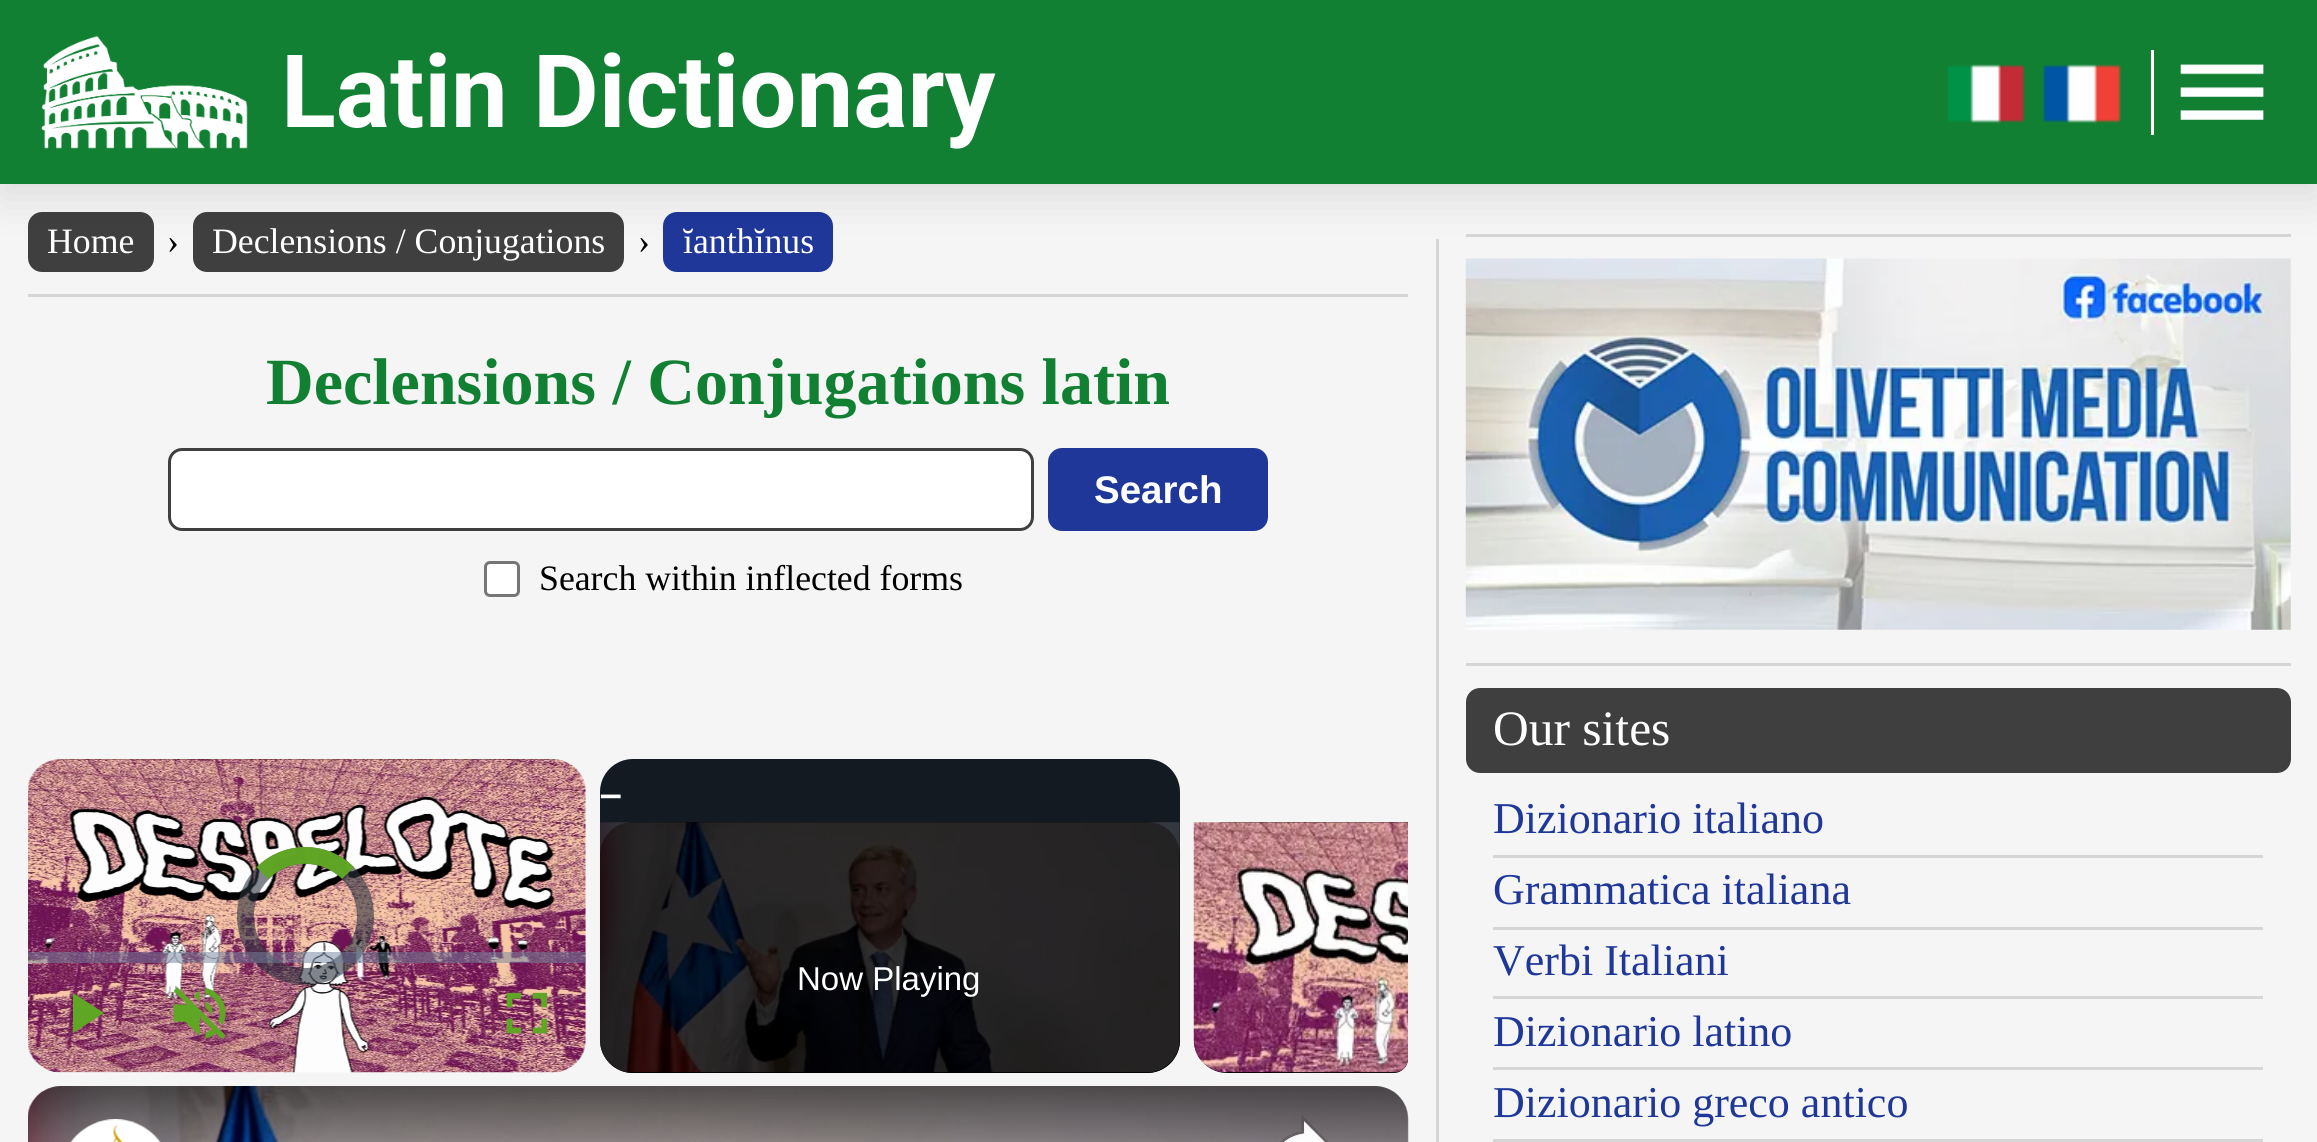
#include <cairo.h>
#include <math.h>
#include <stddef.h>

static cairo_t *ctx;

static void use_color(int r, int g, int b) {
    cairo_set_source_rgb(ctx, r / 255.0, g / 255.0, b / 255.0);
}

static void round_rect(double x, double y, double w, double h, double r) {
    cairo_new_sub_path(ctx);
    cairo_arc(ctx, x + w - r, y + h - r, r, 0, M_PI / 2);
    cairo_arc(ctx, x + r, y + h - r, r, M_PI / 2, M_PI);
    cairo_arc(ctx, x + r, y + r, r, M_PI, 1.5 * M_PI);
    cairo_arc(ctx, x + w - r, y + r, r, 1.5 * M_PI, 2 * M_PI);
    cairo_close_path(ctx);
}

static void shadow(double x, double y, double w, double h, double r, double blur, double alpha) {
    cairo_push_group_with_content(ctx, CAIRO_CONTENT_ALPHA);
    cairo_set_operator(ctx, CAIRO_OPERATOR_SOURCE);
    for (int i = 15; i >= -15 && fmin(w, h) + blur * i / 3 > 0; i -= 2) {
        double e = blur * i / 6;
        cairo_set_source_rgba(ctx, 0, 0, 0, alpha * erfc((i - 1) / 8.5) / 2);
        round_rect(x - e, y - e, w + 2 * e, h + 2 * e, fmax(0, fmin(r + e + blur * .6, fmin(w, h) / 2 + e)));
        cairo_fill(ctx);
    }
    cairo_pattern_t *soft = cairo_pop_group(ctx);
    cairo_mask(ctx, soft);
    cairo_pattern_destroy(soft);
}

static void picture(const char *path, double x, double y, double w, double h) {
    cairo_surface_t *image = cairo_image_surface_create_from_png(path);
    cairo_save(ctx);
    cairo_set_source_surface(ctx, image, x, y);
    cairo_rectangle(ctx, x, y, w, h);
    cairo_fill(ctx);
    cairo_restore(ctx);
    cairo_surface_destroy(image);
}

int main(void) {
    cairo_surface_t *surface = cairo_image_surface_create(CAIRO_FORMAT_RGB24, 2317, 1142);
    ctx = cairo_create(surface);
    cairo_font_options_t *options = cairo_font_options_create();
    cairo_font_options_set_hint_metrics(options, CAIRO_HINT_METRICS_OFF);
    cairo_font_options_set_hint_style(options, CAIRO_HINT_STYLE_NONE);
    cairo_set_font_options(ctx, options);
    cairo_set_miter_limit(ctx, 4);
    cairo_pattern_t *gradient;
    use_color(245, 245, 245);
    cairo_paint(ctx);
    use_color(63, 63, 63);
    round_rect(28, 212, 126, 60, 14);
    cairo_fill(ctx);
    round_rect(193, 212, 431, 60, 14);
    cairo_fill(ctx);
    use_color(30, 55, 153);
    round_rect(663, 212, 170, 60, 14);
    cairo_fill(ctx);
    use_color(214, 214, 214);
    cairo_rectangle(ctx, 1436, 239, 3, 903);
    cairo_fill(ctx);
    cairo_rectangle(ctx, 1466, 234, 825, 3);
    cairo_fill(ctx);
    picture("img14.png", 1465, 258, 826, 372);
    use_color(0, 0, 0);
    shadow(0, 14, 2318, 184, 0, 22, 0.1);
    use_color(18, 128, 51);
    cairo_rectangle(ctx, 0, 0, 2317, 184);
    cairo_fill(ctx);
    picture("img1.png", 41, 35, 207, 114);
    cairo_select_font_face(ctx, "Roboto", CAIRO_FONT_SLANT_NORMAL, CAIRO_FONT_WEIGHT_BOLD);
    cairo_set_font_size(ctx, 101.25);
    use_color(255, 255, 255);
    cairo_move_to(ctx, 281, 127);
    cairo_show_text(ctx, "Latin Dictionary");
    picture("img2.png", 1947, 64, 78, 59);
    picture("img3.png", 2042, 64, 79, 59);
    cairo_rectangle(ctx, 2151, 50, 3, 85);
    cairo_fill(ctx);
    picture("img4.png", 2180, 64, 84, 56);
    cairo_select_font_face(ctx, "Liberation Serif", CAIRO_FONT_SLANT_NORMAL, CAIRO_FONT_WEIGHT_NORMAL);
    cairo_set_font_size(ctx, 35.75);
    cairo_move_to(ctx, 47, 253);
    cairo_show_text(ctx, "Home");
    use_color(0, 0, 0);
    cairo_move_to(ctx, 167, 253);
    cairo_show_text(ctx, "›");
    use_color(255, 255, 255);
    cairo_move_to(ctx, 212, 253);
    cairo_show_text(ctx, "Declensions / Conjugations");
    use_color(0, 0, 0);
    cairo_move_to(ctx, 638, 253);
    cairo_show_text(ctx, "›");
    use_color(255, 255, 255);
    cairo_move_to(ctx, 683, 253);
    cairo_show_text(ctx, "ĭanthĭnus");
    use_color(214, 214, 214);
    cairo_rectangle(ctx, 28, 294, 1380, 3);
    cairo_fill(ctx);
    cairo_select_font_face(ctx, "Liberation Serif", CAIRO_FONT_SLANT_NORMAL, CAIRO_FONT_WEIGHT_BOLD);
    cairo_set_font_size(ctx, 66);
    use_color(18, 128, 51);
    cairo_move_to(ctx, 266, 404);
    cairo_show_text(ctx, "Declensions / Conjugations latin");
    use_color(255, 255, 255);
    round_rect(169.5, 449.5, 863, 80, 12.5);
    cairo_fill_preserve(ctx);
    use_color(63, 63, 63);
    cairo_set_line_width(ctx, 3);
    cairo_stroke(ctx);
    use_color(30, 55, 153);
    round_rect(1049.5, 449.5, 217, 80, 12.5);
    cairo_fill_preserve(ctx);
    cairo_stroke(ctx);
    cairo_select_font_face(ctx, "Liberation Sans", CAIRO_FONT_SLANT_NORMAL, CAIRO_FONT_WEIGHT_BOLD);
    cairo_set_font_size(ctx, 38.5);
    use_color(255, 255, 255);
    cairo_move_to(ctx, 1094, 503);
    cairo_show_text(ctx, "Search");
    round_rect(485.5, 562.5, 33, 33, 4.5);
    cairo_fill_preserve(ctx);
    use_color(118, 118, 118);
    cairo_stroke(ctx);
    cairo_select_font_face(ctx, "Liberation Serif", CAIRO_FONT_SLANT_NORMAL, CAIRO_FONT_WEIGHT_NORMAL);
    cairo_set_font_size(ctx, 35.75);
    use_color(0, 0, 0);
    cairo_move_to(ctx, 539, 590);
    cairo_show_text(ctx, "Search within inflected forms");
    use_color(249, 249, 249);
    cairo_new_path(ctx);
    cairo_arc(ctx, 558, 781, 22, 0, 2 * M_PI);
    cairo_fill(ctx);
    picture("img5.png", 28, 759, 558, 314);
    round_rect(245.5, 855.5, 120, 121, 60);
    cairo_set_source_rgba(ctx, 0.169, 0.2, 0.247, 0.59);
    cairo_set_line_width(ctx, 17);
    cairo_stroke(ctx);
    cairo_new_path(ctx);
    cairo_move_to(ctx, 262.5, 873);
    cairo_curve_to(ctx, 286, 849.5, 324.5, 849.5, 348, 873);
    cairo_set_source_rgba(ctx, 0.373, 0.651, 0.141, 0.85);
    cairo_set_line_width(ctx, 16.5);
    cairo_stroke(ctx);
    cairo_new_path(ctx);
    cairo_move_to(ctx, 262.5, 873);
    cairo_curve_to(ctx, 286, 849.5, 324.5, 849.5, 348, 873);
    cairo_stroke(ctx);
    cairo_set_source_rgba(ctx, 0.451, 0.522, 0.624, 0.5);
    cairo_rectangle(ctx, 28, 952, 558, 11);
    cairo_fill(ctx);
    use_color(95, 166, 36);
    cairo_new_path(ctx);
    cairo_move_to(ctx, 73, 993);
    cairo_line_to(ctx, 73, 1033);
    cairo_line_to(ctx, 104, 1013);
    cairo_close_path(ctx);
    cairo_fill(ctx);
    picture("img6.png", 173, 987, 53, 52);
    picture("img7.png", 506, 992, 42, 42);
    use_color(20, 26, 33);
    round_rect(600, 759, 580, 314, 33);
    cairo_fill(ctx);
    cairo_select_font_face(ctx, "Noto Sans", CAIRO_FONT_SLANT_NORMAL, CAIRO_FONT_WEIGHT_NORMAL);
    cairo_set_font_size(ctx, 47);
    use_color(255, 255, 255);
    cairo_move_to(ctx, 599, 809);
    cairo_show_text(ctx, "–");
    use_color(0, 0, 0);
    round_rect(600, 822, 580, 251, 33);
    cairo_fill(ctx);
    picture("img8.png", 599, 822, 581, 251);
    cairo_select_font_face(ctx, "Liberation Sans", CAIRO_FONT_SLANT_NORMAL, CAIRO_FONT_WEIGHT_NORMAL);
    cairo_set_font_size(ctx, 33);
    use_color(255, 255, 255);
    cairo_move_to(ctx, 797, 990);
    cairo_show_text(ctx, "Now Playing");
    use_color(0, 0, 0);
    cairo_new_path(ctx);
    cairo_move_to(ctx, 1227, 822);
    cairo_line_to(ctx, 1408, 822);
    cairo_line_to(ctx, 1408, 1059);
    cairo_curve_to(ctx, 1408, 1066.5, 1401.5, 1073, 1394, 1073);
    cairo_line_to(ctx, 1227, 1073);
    cairo_curve_to(ctx, 1209, 1073, 1194, 1058, 1194, 1040);
    cairo_line_to(ctx, 1194, 855);
    cairo_curve_to(ctx, 1194, 837, 1209, 822, 1227, 822);
    cairo_close_path(ctx);
    cairo_fill(ctx);
    picture("img9.png", 1193, 822, 215, 251);
    use_color(249, 249, 249);
    cairo_arc(ctx, 1381, 1108, 22, 0, 2 * M_PI);
    cairo_fill(ctx);
    picture("img11.png", 28, 1091, 1381, 51);
    picture("img10.png", 28, 1086, 1381, 56);
    gradient = cairo_pattern_create_linear(718, 1086, 718, 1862);
    cairo_pattern_add_color_stop_rgba(gradient, 0, 0, 0, 0, 0.6);
    cairo_pattern_add_color_stop_rgba(gradient, 0.16, 0, 0, 0, 0);
    cairo_pattern_add_color_stop_rgba(gradient, 0.84, 0, 0, 0, 0);
    cairo_pattern_add_color_stop_rgba(gradient, 1, 0, 0, 0, 0.8);
    cairo_set_source(ctx, gradient);
    cairo_pattern_destroy(gradient);
    round_rect(28, 1086, 1380, 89, 33);
    cairo_fill(ctx);
    picture("img12.png", 70, 1119, 91, 23);
    picture("img13.png", 1280, 1115, 48, 27);
    use_color(214, 214, 214);
    cairo_rectangle(ctx, 1466, 663, 825, 3);
    cairo_fill(ctx);
    use_color(63, 63, 63);
    round_rect(1466, 688, 825, 85, 14);
    cairo_fill(ctx);
    cairo_select_font_face(ctx, "Liberation Serif", CAIRO_FONT_SLANT_NORMAL, CAIRO_FONT_WEIGHT_NORMAL);
    cairo_set_font_size(ctx, 49.5);
    use_color(255, 255, 255);
    cairo_move_to(ctx, 1493, 745);
    cairo_show_text(ctx, "Our sites");
    use_color(214, 214, 214);
    cairo_rectangle(ctx, 1493, 855, 770, 3);
    cairo_fill(ctx);
    cairo_set_font_size(ctx, 44);
    use_color(30, 55, 153);
    cairo_move_to(ctx, 1493, 833);
    cairo_show_text(ctx, "Dizionario italiano");
    use_color(214, 214, 214);
    cairo_rectangle(ctx, 1493, 927, 770, 3);
    cairo_fill(ctx);
    use_color(30, 55, 153);
    cairo_move_to(ctx, 1493, 904);
    cairo_show_text(ctx, "Grammatica italiana");
    use_color(214, 214, 214);
    cairo_rectangle(ctx, 1493, 996, 770, 3);
    cairo_fill(ctx);
    use_color(30, 55, 153);
    cairo_move_to(ctx, 1493, 975);
    cairo_show_text(ctx, "Verbi Italiani");
    use_color(214, 214, 214);
    cairo_rectangle(ctx, 1493, 1067, 770, 3);
    cairo_fill(ctx);
    use_color(30, 55, 153);
    cairo_move_to(ctx, 1493, 1046);
    cairo_show_text(ctx, "Dizionario latino");
    use_color(214, 214, 214);
    cairo_rectangle(ctx, 1493, 1139, 770, 3);
    cairo_fill(ctx);
    use_color(30, 55, 153);
    cairo_move_to(ctx, 1493, 1117);
    cairo_show_text(ctx, "Dizionario greco antico");
    cairo_surface_write_to_png(surface, "result.png");
    cairo_font_options_destroy(options);
    cairo_destroy(ctx);
    cairo_surface_destroy(surface);
    return 0;
}
